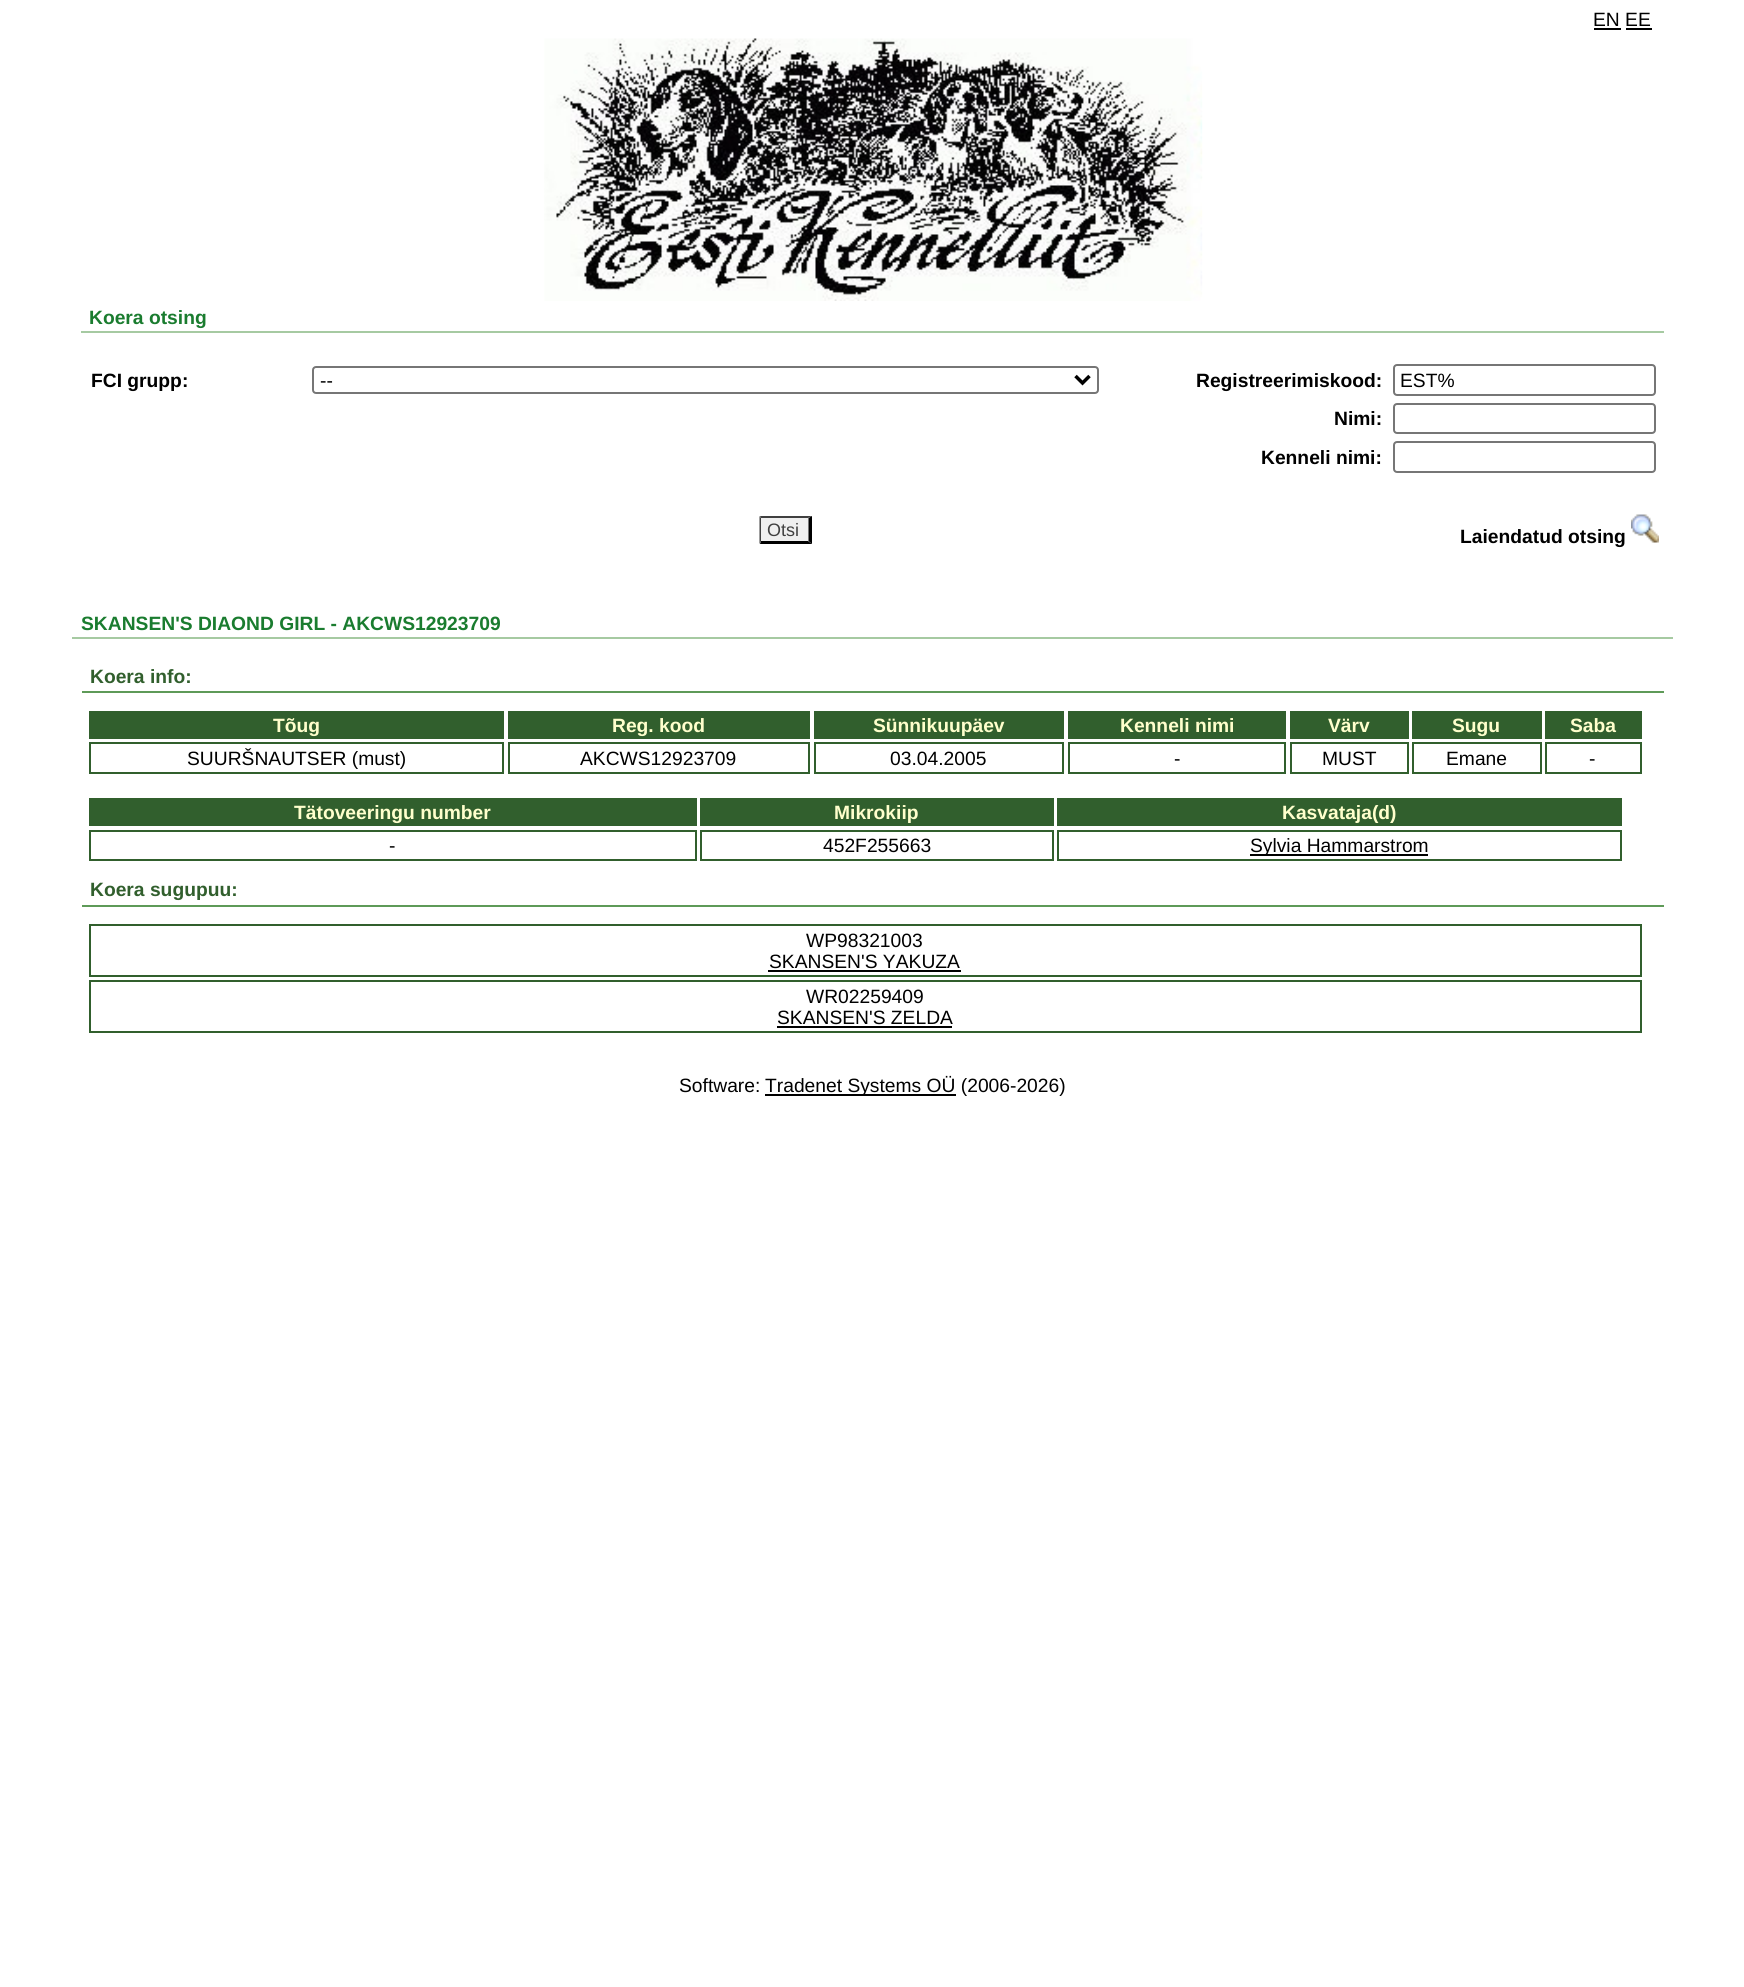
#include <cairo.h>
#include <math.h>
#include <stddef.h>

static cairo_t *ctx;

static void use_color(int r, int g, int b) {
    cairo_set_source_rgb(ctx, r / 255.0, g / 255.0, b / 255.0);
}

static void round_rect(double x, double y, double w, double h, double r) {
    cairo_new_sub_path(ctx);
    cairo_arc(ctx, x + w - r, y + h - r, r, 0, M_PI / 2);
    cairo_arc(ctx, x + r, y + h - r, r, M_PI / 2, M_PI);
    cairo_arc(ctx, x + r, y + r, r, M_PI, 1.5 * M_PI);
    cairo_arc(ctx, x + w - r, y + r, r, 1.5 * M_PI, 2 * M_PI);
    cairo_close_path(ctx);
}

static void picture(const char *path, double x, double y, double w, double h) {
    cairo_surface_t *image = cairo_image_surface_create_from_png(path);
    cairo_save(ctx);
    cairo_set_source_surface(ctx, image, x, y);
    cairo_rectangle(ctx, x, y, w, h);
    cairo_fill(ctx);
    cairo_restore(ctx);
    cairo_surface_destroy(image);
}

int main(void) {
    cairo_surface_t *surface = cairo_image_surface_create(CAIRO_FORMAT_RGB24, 1744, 1987);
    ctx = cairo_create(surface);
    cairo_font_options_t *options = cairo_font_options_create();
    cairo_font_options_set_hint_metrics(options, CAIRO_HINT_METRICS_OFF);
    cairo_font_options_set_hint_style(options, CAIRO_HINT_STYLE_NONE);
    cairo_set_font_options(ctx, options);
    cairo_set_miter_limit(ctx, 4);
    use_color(255, 255, 255);
    cairo_paint(ctx);
    cairo_select_font_face(ctx, "Liberation Sans", CAIRO_FONT_SLANT_NORMAL, CAIRO_FONT_WEIGHT_NORMAL);
    cairo_set_font_size(ctx, 19.25);
    use_color(0, 0, 0);
    cairo_move_to(ctx, 1593, 26);
    cairo_show_text(ctx, "EN EE");
    cairo_rectangle(ctx, 1594, 28, 27, 2);
    cairo_fill(ctx);
    cairo_rectangle(ctx, 1626, 28, 26, 2);
    cairo_fill(ctx);
    picture("img1.png", 544, 38, 659, 263);
    use_color(166, 202, 162);
    cairo_rectangle(ctx, 81, 331, 1583, 2);
    cairo_fill(ctx);
    cairo_select_font_face(ctx, "Liberation Sans", CAIRO_FONT_SLANT_NORMAL, CAIRO_FONT_WEIGHT_BOLD);
    use_color(26, 124, 47);
    cairo_move_to(ctx, 89, 324);
    cairo_show_text(ctx, "Koera otsing");
    use_color(0, 0, 0);
    cairo_move_to(ctx, 91, 387);
    cairo_show_text(ctx, "FCI grupp:");
    round_rect(313, 367, 785, 26, 3);
    use_color(118, 118, 118);
    cairo_stroke(ctx);
    cairo_new_path(ctx);
    cairo_move_to(ctx, 1075.5, 376);
    cairo_line_to(ctx, 1082.5, 383);
    cairo_line_to(ctx, 1089.5, 376);
    use_color(0, 0, 0);
    cairo_set_line_width(ctx, 3.5);
    cairo_stroke(ctx);
    cairo_select_font_face(ctx, "Liberation Sans", CAIRO_FONT_SLANT_NORMAL, CAIRO_FONT_WEIGHT_NORMAL);
    cairo_move_to(ctx, 320, 387);
    cairo_show_text(ctx, "--");
    cairo_select_font_face(ctx, "Liberation Sans", CAIRO_FONT_SLANT_NORMAL, CAIRO_FONT_WEIGHT_BOLD);
    cairo_move_to(ctx, 1196, 387);
    cairo_show_text(ctx, "Registreerimiskood:");
    round_rect(1394, 365, 261, 30, 3);
    use_color(118, 118, 118);
    cairo_set_line_width(ctx, 2);
    cairo_stroke(ctx);
    cairo_select_font_face(ctx, "Liberation Sans", CAIRO_FONT_SLANT_NORMAL, CAIRO_FONT_WEIGHT_NORMAL);
    use_color(0, 0, 0);
    cairo_move_to(ctx, 1400, 387);
    cairo_show_text(ctx, "EST%");
    cairo_select_font_face(ctx, "Liberation Sans", CAIRO_FONT_SLANT_NORMAL, CAIRO_FONT_WEIGHT_BOLD);
    cairo_move_to(ctx, 1334, 425);
    cairo_show_text(ctx, "Nimi:");
    round_rect(1394, 404, 261, 29, 3);
    use_color(118, 118, 118);
    cairo_stroke(ctx);
    use_color(0, 0, 0);
    cairo_move_to(ctx, 1261, 464);
    cairo_show_text(ctx, "Kenneli nimi:");
    round_rect(1394, 442, 261, 30, 3);
    use_color(118, 118, 118);
    cairo_stroke(ctx);
    use_color(239, 239, 239);
    cairo_rectangle(ctx, 760, 516, 52, 28);
    cairo_fill(ctx);
    use_color(64, 64, 64);
    cairo_new_path(ctx);
    cairo_move_to(ctx, 760, 516);
    cairo_line_to(ctx, 812, 516);
    cairo_line_to(ctx, 808, 518);
    cairo_line_to(ctx, 761, 518);
    cairo_close_path(ctx);
    cairo_fill(ctx);
    use_color(0, 0, 0);
    cairo_new_path(ctx);
    cairo_move_to(ctx, 812, 516);
    cairo_line_to(ctx, 812, 544);
    cairo_line_to(ctx, 808.5, 541);
    cairo_line_to(ctx, 808.5, 518);
    cairo_close_path(ctx);
    cairo_fill(ctx);
    cairo_new_path(ctx);
    cairo_move_to(ctx, 812, 544);
    cairo_line_to(ctx, 760, 544);
    cairo_line_to(ctx, 761, 541);
    cairo_line_to(ctx, 808, 541);
    cairo_close_path(ctx);
    cairo_fill(ctx);
    use_color(64, 64, 64);
    cairo_new_path(ctx);
    cairo_move_to(ctx, 759.5, 544);
    cairo_line_to(ctx, 759.5, 516);
    cairo_line_to(ctx, 761, 518);
    cairo_line_to(ctx, 761, 541);
    cairo_close_path(ctx);
    cairo_fill(ctx);
    cairo_select_font_face(ctx, "Liberation Sans", CAIRO_FONT_SLANT_NORMAL, CAIRO_FONT_WEIGHT_NORMAL);
    cairo_set_font_size(ctx, 18);
    cairo_move_to(ctx, 767, 536);
    cairo_show_text(ctx, "Otsi");
    cairo_select_font_face(ctx, "Liberation Sans", CAIRO_FONT_SLANT_NORMAL, CAIRO_FONT_WEIGHT_BOLD);
    cairo_set_font_size(ctx, 19.25);
    use_color(0, 0, 0);
    cairo_move_to(ctx, 1460, 543);
    cairo_show_text(ctx, "Laiendatud otsing");
    picture("img2.png", 1631, 514, 28, 29);
    use_color(166, 202, 162);
    cairo_rectangle(ctx, 72, 637, 1601, 2);
    cairo_fill(ctx);
    use_color(26, 124, 47);
    cairo_move_to(ctx, 81, 630);
    cairo_show_text(ctx, "SKANSEN'S DIAOND GIRL - AKCWS12923709");
    use_color(94, 154, 88);
    cairo_rectangle(ctx, 82, 691, 1582, 2);
    cairo_fill(ctx);
    use_color(49, 95, 45);
    cairo_move_to(ctx, 90, 683);
    cairo_show_text(ctx, "Koera info:");
    cairo_rectangle(ctx, 89, 711, 415, 28);
    cairo_fill(ctx);
    use_color(255, 255, 204);
    cairo_move_to(ctx, 273, 732);
    cairo_show_text(ctx, "Tõug");
    use_color(49, 95, 45);
    cairo_rectangle(ctx, 508, 711, 302, 28);
    cairo_fill(ctx);
    use_color(255, 255, 204);
    cairo_move_to(ctx, 612, 732);
    cairo_show_text(ctx, "Reg. kood");
    use_color(49, 95, 45);
    cairo_rectangle(ctx, 814, 711, 250, 28);
    cairo_fill(ctx);
    use_color(255, 255, 204);
    cairo_move_to(ctx, 873, 732);
    cairo_show_text(ctx, "Sünnikuupäev");
    use_color(49, 95, 45);
    cairo_rectangle(ctx, 1068, 711, 218, 28);
    cairo_fill(ctx);
    use_color(255, 255, 204);
    cairo_move_to(ctx, 1120, 732);
    cairo_show_text(ctx, "Kenneli nimi");
    use_color(49, 95, 45);
    cairo_rectangle(ctx, 1290, 711, 119, 28);
    cairo_fill(ctx);
    use_color(255, 255, 204);
    cairo_move_to(ctx, 1328, 732);
    cairo_show_text(ctx, "Värv");
    use_color(49, 95, 45);
    cairo_rectangle(ctx, 1412, 711, 130, 28);
    cairo_fill(ctx);
    use_color(255, 255, 204);
    cairo_move_to(ctx, 1452, 732);
    cairo_show_text(ctx, "Sugu");
    use_color(49, 95, 45);
    cairo_rectangle(ctx, 1545, 711, 97, 28);
    cairo_fill(ctx);
    use_color(255, 255, 204);
    cairo_move_to(ctx, 1570, 732);
    cairo_show_text(ctx, "Saba");
    cairo_rectangle(ctx, 90, 743, 413, 30);
    use_color(49, 95, 45);
    cairo_stroke(ctx);
    cairo_select_font_face(ctx, "Liberation Sans", CAIRO_FONT_SLANT_NORMAL, CAIRO_FONT_WEIGHT_NORMAL);
    use_color(0, 0, 0);
    cairo_move_to(ctx, 187, 765);
    cairo_show_text(ctx, "SUURŠNAUTSER (must)");
    cairo_rectangle(ctx, 509, 743, 300, 30);
    use_color(49, 95, 45);
    cairo_stroke(ctx);
    use_color(0, 0, 0);
    cairo_move_to(ctx, 580, 765);
    cairo_show_text(ctx, "AKCWS12923709");
    cairo_rectangle(ctx, 815, 743, 248, 30);
    use_color(49, 95, 45);
    cairo_stroke(ctx);
    use_color(0, 0, 0);
    cairo_move_to(ctx, 890, 765);
    cairo_show_text(ctx, "03.04.2005");
    cairo_rectangle(ctx, 1069, 743, 216, 30);
    use_color(49, 95, 45);
    cairo_stroke(ctx);
    use_color(0, 0, 0);
    cairo_move_to(ctx, 1174, 765);
    cairo_show_text(ctx, "-");
    cairo_rectangle(ctx, 1291, 743, 117, 30);
    use_color(49, 95, 45);
    cairo_stroke(ctx);
    use_color(0, 0, 0);
    cairo_move_to(ctx, 1322, 765);
    cairo_show_text(ctx, "MUST");
    cairo_rectangle(ctx, 1413, 743, 128, 30);
    use_color(49, 95, 45);
    cairo_stroke(ctx);
    use_color(0, 0, 0);
    cairo_move_to(ctx, 1446, 765);
    cairo_show_text(ctx, "Emane");
    cairo_rectangle(ctx, 1546, 743, 95, 30);
    use_color(49, 95, 45);
    cairo_stroke(ctx);
    use_color(0, 0, 0);
    cairo_move_to(ctx, 1589, 765);
    cairo_show_text(ctx, "-");
    use_color(49, 95, 45);
    cairo_rectangle(ctx, 89, 798, 608, 28);
    cairo_fill(ctx);
    cairo_select_font_face(ctx, "Liberation Sans", CAIRO_FONT_SLANT_NORMAL, CAIRO_FONT_WEIGHT_BOLD);
    use_color(255, 255, 204);
    cairo_move_to(ctx, 294, 819);
    cairo_show_text(ctx, "Tätoveeringu number");
    use_color(49, 95, 45);
    cairo_rectangle(ctx, 700, 798, 354, 28);
    cairo_fill(ctx);
    use_color(255, 255, 204);
    cairo_move_to(ctx, 834, 819);
    cairo_show_text(ctx, "Mikrokiip");
    use_color(49, 95, 45);
    cairo_rectangle(ctx, 1057, 798, 565, 28);
    cairo_fill(ctx);
    use_color(255, 255, 204);
    cairo_move_to(ctx, 1282, 819);
    cairo_show_text(ctx, "Kasvataja(d)");
    cairo_rectangle(ctx, 90, 831, 606, 29);
    use_color(49, 95, 45);
    cairo_stroke(ctx);
    cairo_select_font_face(ctx, "Liberation Sans", CAIRO_FONT_SLANT_NORMAL, CAIRO_FONT_WEIGHT_NORMAL);
    use_color(0, 0, 0);
    cairo_move_to(ctx, 389, 852);
    cairo_show_text(ctx, "-");
    cairo_rectangle(ctx, 701, 831, 352, 29);
    use_color(49, 95, 45);
    cairo_stroke(ctx);
    use_color(0, 0, 0);
    cairo_move_to(ctx, 823, 852);
    cairo_show_text(ctx, "452F255663");
    cairo_rectangle(ctx, 1058, 831, 563, 29);
    use_color(49, 95, 45);
    cairo_stroke(ctx);
    use_color(0, 0, 0);
    cairo_rectangle(ctx, 1250, 854, 178, 2);
    cairo_fill(ctx);
    cairo_move_to(ctx, 1250, 852);
    cairo_show_text(ctx, "Sylvia Hammarstrom");
    use_color(94, 154, 88);
    cairo_rectangle(ctx, 82, 905, 1582, 2);
    cairo_fill(ctx);
    cairo_select_font_face(ctx, "Liberation Sans", CAIRO_FONT_SLANT_NORMAL, CAIRO_FONT_WEIGHT_BOLD);
    use_color(49, 95, 45);
    cairo_move_to(ctx, 90, 896);
    cairo_show_text(ctx, "Koera sugupuu:");
    cairo_rectangle(ctx, 90, 925, 1551, 51);
    cairo_stroke(ctx);
    cairo_select_font_face(ctx, "Liberation Sans", CAIRO_FONT_SLANT_NORMAL, CAIRO_FONT_WEIGHT_NORMAL);
    use_color(0, 0, 0);
    cairo_move_to(ctx, 806, 947);
    cairo_show_text(ctx, "WP98321003");
    cairo_move_to(ctx, 769, 968);
    cairo_show_text(ctx, "SKANSEN'S YAKUZA");
    cairo_rectangle(ctx, 768, 970, 193, 2);
    cairo_fill(ctx);
    cairo_rectangle(ctx, 90, 981, 1551, 51);
    use_color(49, 95, 45);
    cairo_stroke(ctx);
    use_color(0, 0, 0);
    cairo_move_to(ctx, 806, 1003);
    cairo_show_text(ctx, "WR02259409");
    cairo_move_to(ctx, 777, 1024);
    cairo_show_text(ctx, "SKANSEN'S ZELDA");
    cairo_rectangle(ctx, 777, 1026, 175, 2);
    cairo_fill(ctx);
    cairo_move_to(ctx, 679, 1092);
    cairo_show_text(ctx, "Software:");
    cairo_rectangle(ctx, 765, 1094, 191, 2);
    cairo_fill(ctx);
    cairo_move_to(ctx, 765, 1092);
    cairo_show_text(ctx, "Tradenet Systems OÜ (2006-2026)");
    cairo_surface_write_to_png(surface, "result.png");
    cairo_font_options_destroy(options);
    cairo_destroy(ctx);
    cairo_surface_destroy(surface);
    return 0;
}
